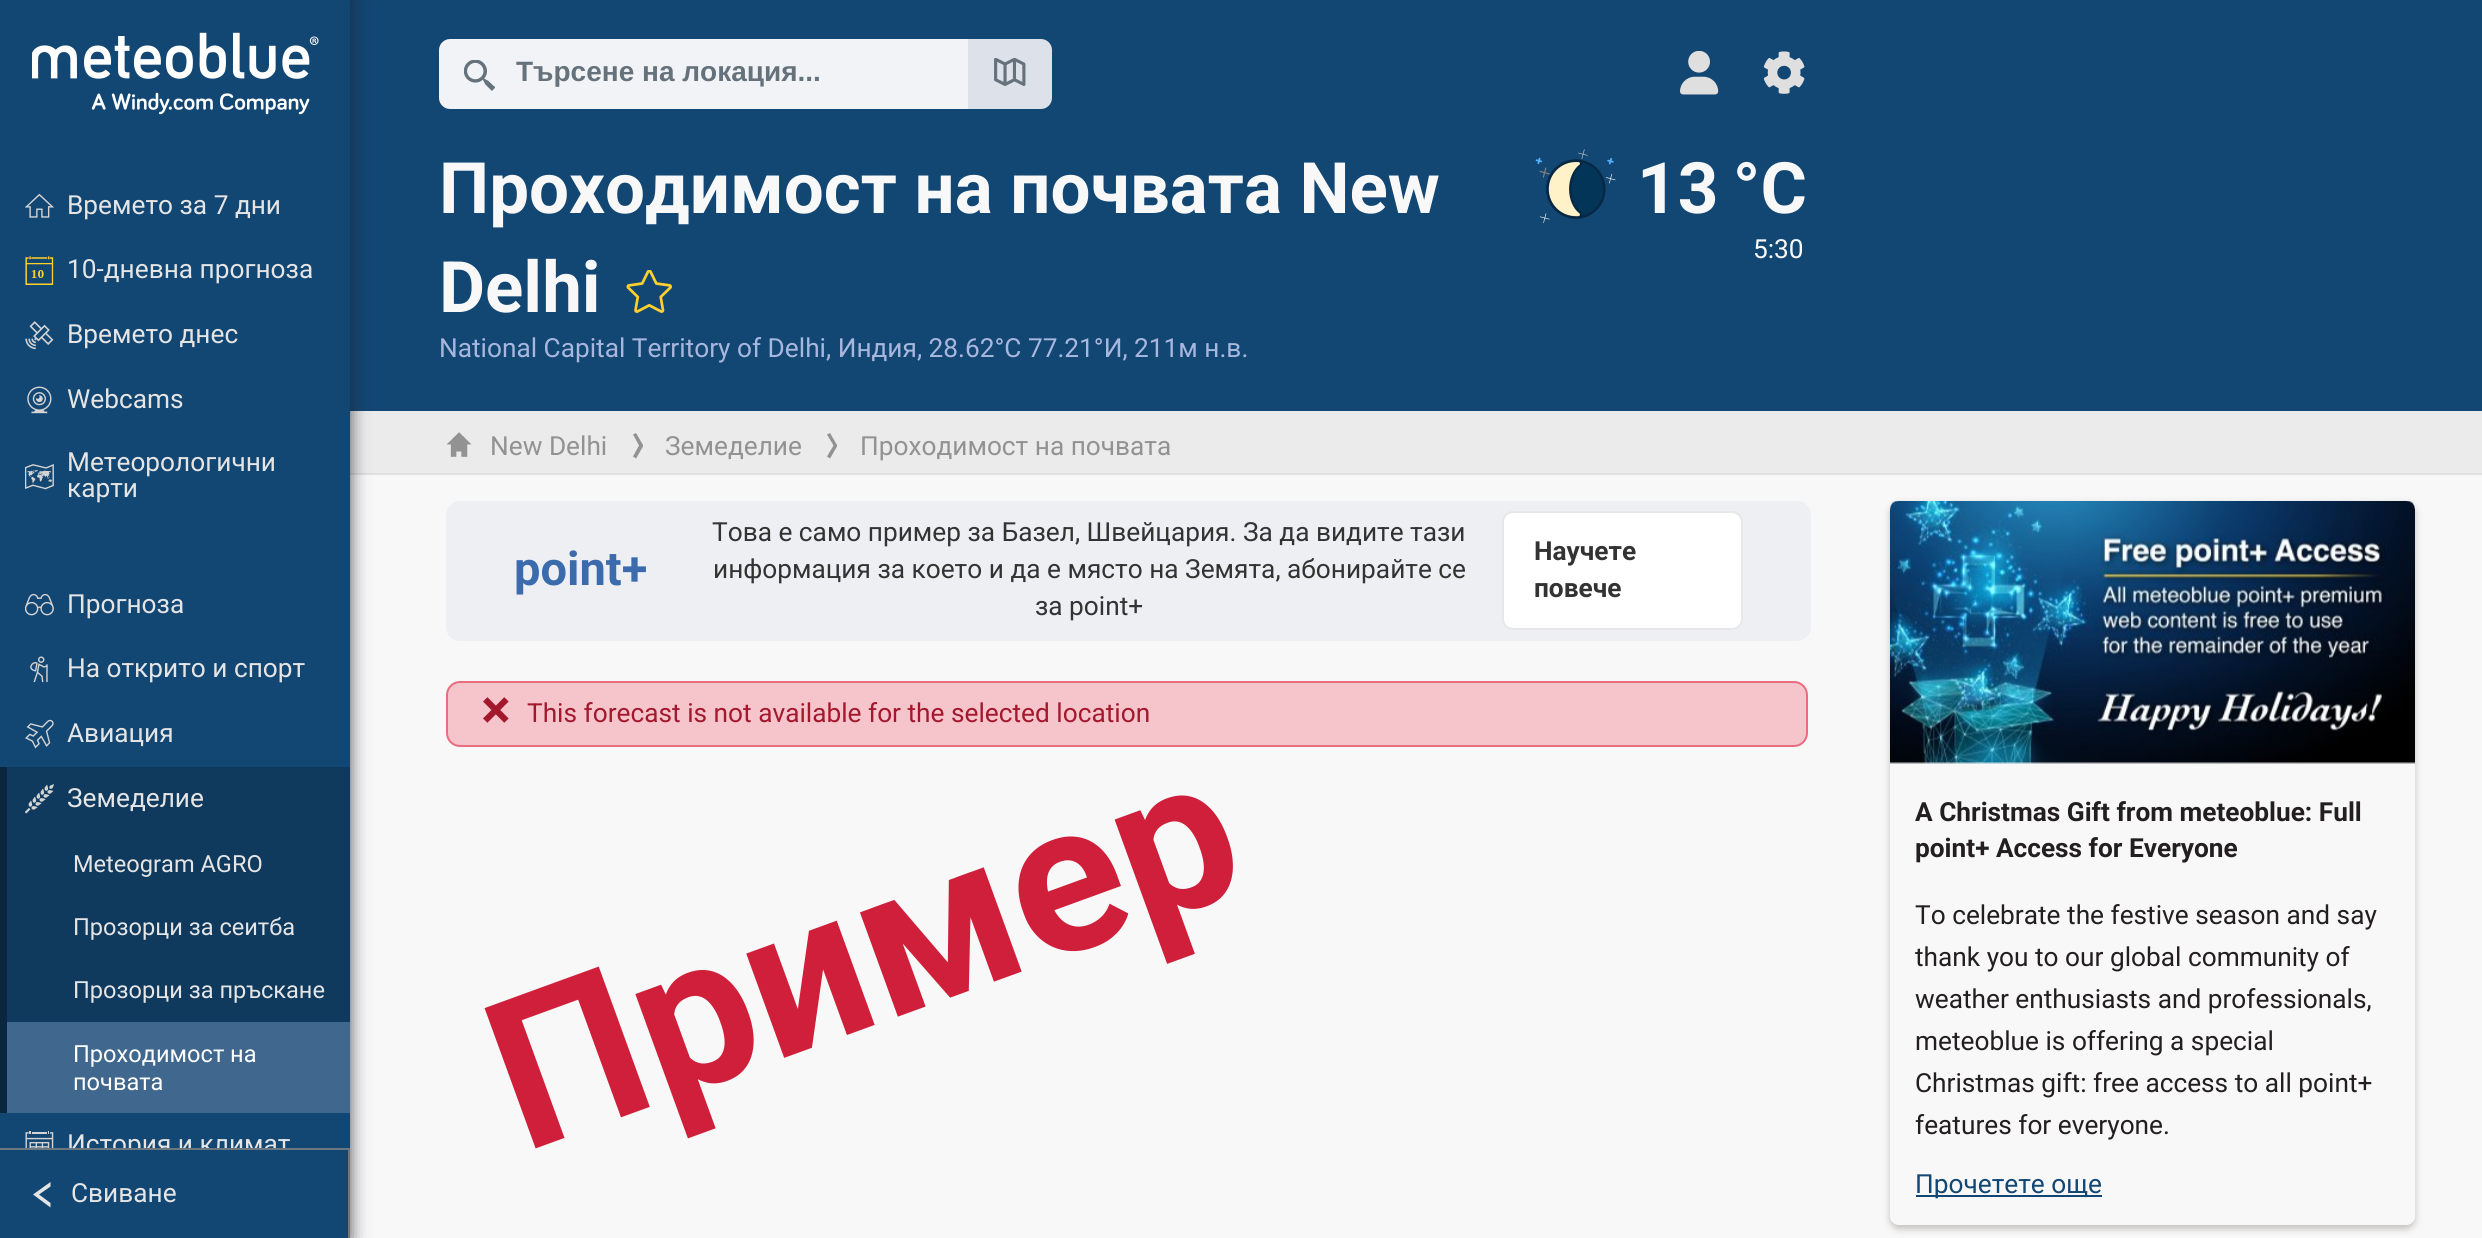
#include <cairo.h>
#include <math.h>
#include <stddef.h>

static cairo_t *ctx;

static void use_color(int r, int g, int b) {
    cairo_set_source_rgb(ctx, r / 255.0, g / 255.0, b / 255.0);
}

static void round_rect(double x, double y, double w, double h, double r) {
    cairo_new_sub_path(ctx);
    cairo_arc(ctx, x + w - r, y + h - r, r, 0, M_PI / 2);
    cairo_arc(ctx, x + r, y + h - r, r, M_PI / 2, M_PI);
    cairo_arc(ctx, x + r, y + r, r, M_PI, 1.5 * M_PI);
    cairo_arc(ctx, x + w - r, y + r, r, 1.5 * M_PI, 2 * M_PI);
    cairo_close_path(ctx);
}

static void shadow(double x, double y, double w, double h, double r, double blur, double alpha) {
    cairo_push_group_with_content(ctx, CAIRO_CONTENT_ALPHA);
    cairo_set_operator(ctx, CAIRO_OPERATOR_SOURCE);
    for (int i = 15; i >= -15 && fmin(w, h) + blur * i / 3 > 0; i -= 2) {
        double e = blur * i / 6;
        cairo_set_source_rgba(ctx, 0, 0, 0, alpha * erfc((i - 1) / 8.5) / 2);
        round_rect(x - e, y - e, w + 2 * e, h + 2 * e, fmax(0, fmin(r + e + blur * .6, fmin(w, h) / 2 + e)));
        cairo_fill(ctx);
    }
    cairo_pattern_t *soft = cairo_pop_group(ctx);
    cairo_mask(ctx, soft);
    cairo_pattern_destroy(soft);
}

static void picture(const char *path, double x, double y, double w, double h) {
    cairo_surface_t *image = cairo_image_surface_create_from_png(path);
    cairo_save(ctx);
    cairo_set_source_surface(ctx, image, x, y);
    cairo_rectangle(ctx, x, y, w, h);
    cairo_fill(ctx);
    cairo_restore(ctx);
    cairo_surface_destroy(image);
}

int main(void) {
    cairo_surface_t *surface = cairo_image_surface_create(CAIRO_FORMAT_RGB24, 2482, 1238);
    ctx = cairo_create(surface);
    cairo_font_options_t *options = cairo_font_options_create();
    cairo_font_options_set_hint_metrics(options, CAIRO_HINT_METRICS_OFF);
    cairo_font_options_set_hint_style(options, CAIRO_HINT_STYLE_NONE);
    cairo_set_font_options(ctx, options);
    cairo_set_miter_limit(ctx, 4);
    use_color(248, 248, 248);
    cairo_paint(ctx);
    use_color(18, 70, 115);
    cairo_rectangle(ctx, 350, 0, 2132, 411);
    cairo_fill(ctx);
    use_color(235, 235, 235);
    cairo_rectangle(ctx, 350, 411, 2132, 62);
    cairo_fill(ctx);
    use_color(223, 223, 223);
    cairo_rectangle(ctx, 350, 473, 2132, 2);
    cairo_fill(ctx);
    use_color(35, 35, 45);
    shadow(0, 0, 350, 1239, 0, 9, 0.8);
    use_color(18, 70, 115);
    cairo_rectangle(ctx, 0, 0, 350, 1148);
    cairo_fill(ctx);
    picture("img1.png", 32, 32, 287, 83);
    picture("img2.png", 25, 193, 29, 25);
    cairo_select_font_face(ctx, "Roboto", CAIRO_FONT_SLANT_NORMAL, CAIRO_FONT_WEIGHT_NORMAL);
    cairo_set_font_size(ctx, 26.25);
    use_color(229, 229, 229);
    cairo_move_to(ctx, 67, 214);
    cairo_show_text(ctx, "Времето за 7 дни");
    picture("img3.png", 25, 256, 29, 29);
    cairo_move_to(ctx, 67, 278);
    cairo_show_text(ctx, "10-дневна прогноза");
    picture("img4.png", 25, 321, 29, 29);
    cairo_move_to(ctx, 67, 343);
    cairo_show_text(ctx, "Времето днес");
    picture("img5.png", 27, 386, 25, 28);
    cairo_move_to(ctx, 67, 408);
    cairo_show_text(ctx, "Webcams");
    picture("img6.png", 25, 464, 29, 26);
    cairo_move_to(ctx, 67, 471);
    cairo_show_text(ctx, "Метеорологични");
    cairo_move_to(ctx, 67, 497);
    cairo_show_text(ctx, "карти");
    picture("img7.png", 25, 593, 29, 23);
    cairo_move_to(ctx, 67, 613);
    cairo_show_text(ctx, "Прогноза");
    picture("img8.png", 30, 656, 18, 27);
    cairo_move_to(ctx, 67, 677);
    cairo_show_text(ctx, "На открито и спорт");
    picture("img9.png", 25, 719, 29, 30);
    cairo_move_to(ctx, 67, 742);
    cairo_show_text(ctx, "Авиация");
    use_color(15, 57, 93);
    cairo_rectangle(ctx, 7, 767, 343, 255);
    cairo_fill(ctx);
    picture("img10.png", 25, 784, 29, 30);
    use_color(229, 229, 229);
    cairo_move_to(ctx, 67, 807);
    cairo_show_text(ctx, "Земеделие");
    use_color(10, 38, 62);
    cairo_rectangle(ctx, 0, 767, 7, 346);
    cairo_fill(ctx);
    cairo_set_font_size(ctx, 23.6);
    use_color(229, 229, 229);
    cairo_move_to(ctx, 73, 872);
    cairo_show_text(ctx, "Meteogram AGRO");
    cairo_move_to(ctx, 73, 935);
    cairo_show_text(ctx, "Прозорци за сеитба");
    cairo_move_to(ctx, 73, 998);
    cairo_show_text(ctx, "Прозорци за пръскане");
    use_color(64, 103, 142);
    cairo_rectangle(ctx, 7, 1022, 343, 91);
    cairo_fill(ctx);
    use_color(255, 255, 255);
    cairo_move_to(ctx, 73, 1062);
    cairo_show_text(ctx, "Проходимост на");
    cairo_move_to(ctx, 73, 1090);
    cairo_show_text(ctx, "почвата");
    picture("img11.png", 25, 1131, 29, 17);
    cairo_set_font_size(ctx, 26.25);
    use_color(229, 229, 229);
    cairo_move_to(ctx, 67, 1153);
    cairo_show_text(ctx, "История и климат");
    use_color(107, 120, 127);
    cairo_rectangle(ctx, 348, 1148, 2, 90);
    cairo_fill(ctx);
    use_color(18, 70, 115);
    cairo_rectangle(ctx, 0, 1150, 348, 88);
    cairo_fill(ctx);
    use_color(107, 120, 127);
    cairo_rectangle(ctx, 0, 1148, 348, 2);
    cairo_fill(ctx);
    use_color(229, 229, 229);
    cairo_new_path(ctx);
    cairo_move_to(ctx, 33, 1194.5);
    cairo_line_to(ctx, 50.5, 1182);
    cairo_line_to(ctx, 50.5, 1186.5);
    cairo_line_to(ctx, 39, 1194.5);
    cairo_line_to(ctx, 50.5, 1203);
    cairo_line_to(ctx, 50.5, 1207.5);
    cairo_close_path(ctx);
    cairo_fill(ctx);
    cairo_move_to(ctx, 71, 1202);
    cairo_show_text(ctx, "Свиване");
    use_color(241, 243, 246);
    cairo_new_path(ctx);
    cairo_move_to(ctx, 450, 39);
    cairo_line_to(ctx, 968, 39);
    cairo_line_to(ctx, 968, 109);
    cairo_line_to(ctx, 450, 109);
    cairo_curve_to(ctx, 444, 109, 439, 104, 439, 98);
    cairo_line_to(ctx, 439, 50);
    cairo_curve_to(ctx, 439, 44, 444, 39, 450, 39);
    cairo_close_path(ctx);
    cairo_fill(ctx);
    picture("img12.png", 464, 60, 31, 31);
    cairo_select_font_face(ctx, "Liberation Sans", CAIRO_FONT_SLANT_NORMAL, CAIRO_FONT_WEIGHT_BOLD);
    cairo_set_font_size(ctx, 28);
    use_color(101, 114, 124);
    cairo_move_to(ctx, 516, 81);
    cairo_show_text(ctx, "Търсене на локация...");
    use_color(221, 226, 234);
    cairo_new_path(ctx);
    cairo_move_to(ctx, 968, 39);
    cairo_line_to(ctx, 1041, 39);
    cairo_curve_to(ctx, 1047, 39, 1052, 44, 1052, 50);
    cairo_line_to(ctx, 1052, 98);
    cairo_curve_to(ctx, 1052, 104, 1047, 109, 1041, 109);
    cairo_line_to(ctx, 968, 109);
    cairo_close_path(ctx);
    cairo_fill(ctx);
    picture("img13.png", 994, 58, 32, 28);
    picture("img14.png", 1680, 51, 39, 44);
    picture("img15.png", 1763, 51, 42, 43);
    cairo_select_font_face(ctx, "Roboto", CAIRO_FONT_SLANT_NORMAL, CAIRO_FONT_WEIGHT_BOLD);
    cairo_set_font_size(ctx, 70.9);
    use_color(248, 248, 248);
    cairo_move_to(ctx, 439, 213);
    cairo_show_text(ctx, "Проходимост на почвата New");
    cairo_move_to(ctx, 439, 312);
    cairo_show_text(ctx, "Delhi");
    picture("img16.png", 626, 270, 46, 43);
    cairo_select_font_face(ctx, "Roboto", CAIRO_FONT_SLANT_NORMAL, CAIRO_FONT_WEIGHT_NORMAL);
    cairo_set_font_size(ctx, 26.25);
    use_color(168, 183, 221);
    cairo_move_to(ctx, 439, 357);
    cairo_show_text(ctx, "National Capital Territory of Delhi, Индия, 28.62°С 77.21°И, 211м н.в.");
    picture("img17.png", 1535, 149, 81, 74);
    cairo_select_font_face(ctx, "Roboto", CAIRO_FONT_SLANT_NORMAL, CAIRO_FONT_WEIGHT_BOLD);
    cairo_set_font_size(ctx, 70.9);
    use_color(248, 248, 248);
    cairo_move_to(ctx, 1637, 213);
    cairo_show_text(ctx, "13 °C");
    cairo_select_font_face(ctx, "Roboto", CAIRO_FONT_SLANT_NORMAL, CAIRO_FONT_WEIGHT_NORMAL);
    cairo_set_font_size(ctx, 26.25);
    cairo_move_to(ctx, 1753, 258);
    cairo_show_text(ctx, "5:30");
    picture("img18.png", 446, 432, 26, 25);
    use_color(146, 146, 146);
    cairo_move_to(ctx, 490, 455);
    cairo_show_text(ctx, "New Delhi");
    cairo_new_path(ctx);
    cairo_move_to(ctx, 636, 433);
    cairo_line_to(ctx, 643, 445);
    cairo_line_to(ctx, 643, 446.5);
    cairo_line_to(ctx, 636, 458.5);
    cairo_line_to(ctx, 633, 456.5);
    cairo_line_to(ctx, 639, 445.5);
    cairo_line_to(ctx, 633, 434.5);
    cairo_close_path(ctx);
    cairo_fill(ctx);
    cairo_move_to(ctx, 665, 455);
    cairo_show_text(ctx, "Земеделие");
    cairo_new_path(ctx);
    cairo_move_to(ctx, 830, 433);
    cairo_line_to(ctx, 837, 445);
    cairo_line_to(ctx, 837, 446.5);
    cairo_line_to(ctx, 830, 458.5);
    cairo_line_to(ctx, 827, 456.5);
    cairo_line_to(ctx, 833.5, 445.5);
    cairo_line_to(ctx, 827, 434.5);
    cairo_close_path(ctx);
    cairo_fill(ctx);
    cairo_move_to(ctx, 860, 455);
    cairo_show_text(ctx, "Проходимост на почвата");
    use_color(237, 239, 242);
    round_rect(446, 501, 1365, 140, 14);
    cairo_fill(ctx);
    cairo_select_font_face(ctx, "Roboto", CAIRO_FONT_SLANT_NORMAL, CAIRO_FONT_WEIGHT_BOLD);
    cairo_set_font_size(ctx, 47);
    use_color(59, 106, 173);
    cairo_move_to(ctx, 514, 585);
    cairo_show_text(ctx, "point+");
    cairo_select_font_face(ctx, "Roboto", CAIRO_FONT_SLANT_NORMAL, CAIRO_FONT_WEIGHT_NORMAL);
    cairo_set_font_size(ctx, 26.25);
    use_color(51, 51, 51);
    cairo_move_to(ctx, 712, 541);
    cairo_show_text(ctx, "Това е само пример за Базел, Швейцария. За да видите тази");
    cairo_move_to(ctx, 713, 578);
    cairo_show_text(ctx, "информация за което и да е място на Земята, абонирайте се");
    cairo_move_to(ctx, 1035, 615);
    cairo_show_text(ctx, "за point+");
    use_color(255, 255, 255);
    round_rect(1503, 512, 239, 117, 10);
    cairo_fill_preserve(ctx);
    use_color(231, 231, 233);
    cairo_stroke(ctx);
    cairo_select_font_face(ctx, "Roboto", CAIRO_FONT_SLANT_NORMAL, CAIRO_FONT_WEIGHT_BOLD);
    use_color(51, 51, 51);
    cairo_move_to(ctx, 1534, 560);
    cairo_show_text(ctx, "Научете");
    cairo_move_to(ctx, 1534, 597);
    cairo_show_text(ctx, "повече");
    use_color(246, 197, 204);
    round_rect(447, 682, 1360, 64, 13);
    cairo_fill_preserve(ctx);
    use_color(233, 108, 127);
    cairo_stroke(ctx);
    picture("img19.png", 483, 697, 26, 26);
    cairo_select_font_face(ctx, "Roboto", CAIRO_FONT_SLANT_NORMAL, CAIRO_FONT_WEIGHT_NORMAL);
    use_color(164, 24, 46);
    cairo_move_to(ctx, 527, 722);
    cairo_show_text(ctx, "This forecast is not available for the selected location");
    cairo_select_font_face(ctx, "Roboto", CAIRO_FONT_SLANT_NORMAL, CAIRO_FONT_WEIGHT_BOLD);
    cairo_set_font_size(ctx, 210);
    use_color(208, 31, 58);
    cairo_save(ctx);
    cairo_translate(ctx, 523, 1153);
    cairo_rotate(ctx, -20 * M_PI / 180);
    cairo_move_to(ctx, 0, 0);
    cairo_show_text(ctx, "Пример");
    cairo_restore(ctx);
    cairo_save(ctx);
    cairo_set_fill_rule(ctx, CAIRO_FILL_RULE_EVEN_ODD);
    cairo_new_path(ctx);
    cairo_move_to(ctx, 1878, 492);
    cairo_line_to(ctx, 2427, 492);
    cairo_line_to(ctx, 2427, 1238);
    cairo_line_to(ctx, 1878, 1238);
    cairo_close_path(ctx);
    cairo_move_to(ctx, 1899, 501);
    cairo_line_to(ctx, 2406, 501);
    cairo_curve_to(ctx, 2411, 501, 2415, 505, 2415, 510);
    cairo_line_to(ctx, 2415, 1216);
    cairo_curve_to(ctx, 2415, 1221, 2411, 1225, 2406, 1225);
    cairo_line_to(ctx, 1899, 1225);
    cairo_curve_to(ctx, 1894, 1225, 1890, 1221, 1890, 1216);
    cairo_line_to(ctx, 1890, 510);
    cairo_curve_to(ctx, 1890, 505, 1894, 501, 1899, 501);
    cairo_close_path(ctx);
    cairo_clip(ctx);
    use_color(197, 192, 192);
    shadow(1890, 504, 525, 725, 9, 3.5, 1);
    cairo_restore(ctx);
    picture("img20.png", 1890, 501, 525, 263);
    cairo_set_font_size(ctx, 26.25);
    use_color(35, 31, 32);
    cairo_move_to(ctx, 1915, 821);
    cairo_show_text(ctx, "A Christmas Gift from meteoblue: Full");
    cairo_move_to(ctx, 1915, 857);
    cairo_show_text(ctx, "point+ Access for Everyone");
    cairo_select_font_face(ctx, "Roboto", CAIRO_FONT_SLANT_NORMAL, CAIRO_FONT_WEIGHT_NORMAL);
    cairo_move_to(ctx, 1915, 924);
    cairo_show_text(ctx, "To celebrate the festive season and say");
    cairo_move_to(ctx, 1915, 966);
    cairo_show_text(ctx, "thank you to our global community of");
    cairo_move_to(ctx, 1915, 1008);
    cairo_show_text(ctx, "weather enthusiasts and professionals,");
    cairo_move_to(ctx, 1915, 1050);
    cairo_show_text(ctx, "meteoblue is offering a special");
    cairo_move_to(ctx, 1915, 1092);
    cairo_show_text(ctx, "Christmas gift: free access to all point+");
    cairo_move_to(ctx, 1915, 1134);
    cairo_show_text(ctx, "features for everyone.");
    use_color(18, 70, 115);
    cairo_rectangle(ctx, 1916, 1195, 186, 2);
    cairo_fill(ctx);
    cairo_move_to(ctx, 1915, 1193);
    cairo_show_text(ctx, "Прочетете още");
    cairo_surface_write_to_png(surface, "result.png");
    cairo_font_options_destroy(options);
    cairo_destroy(ctx);
    cairo_surface_destroy(surface);
    return 0;
}
